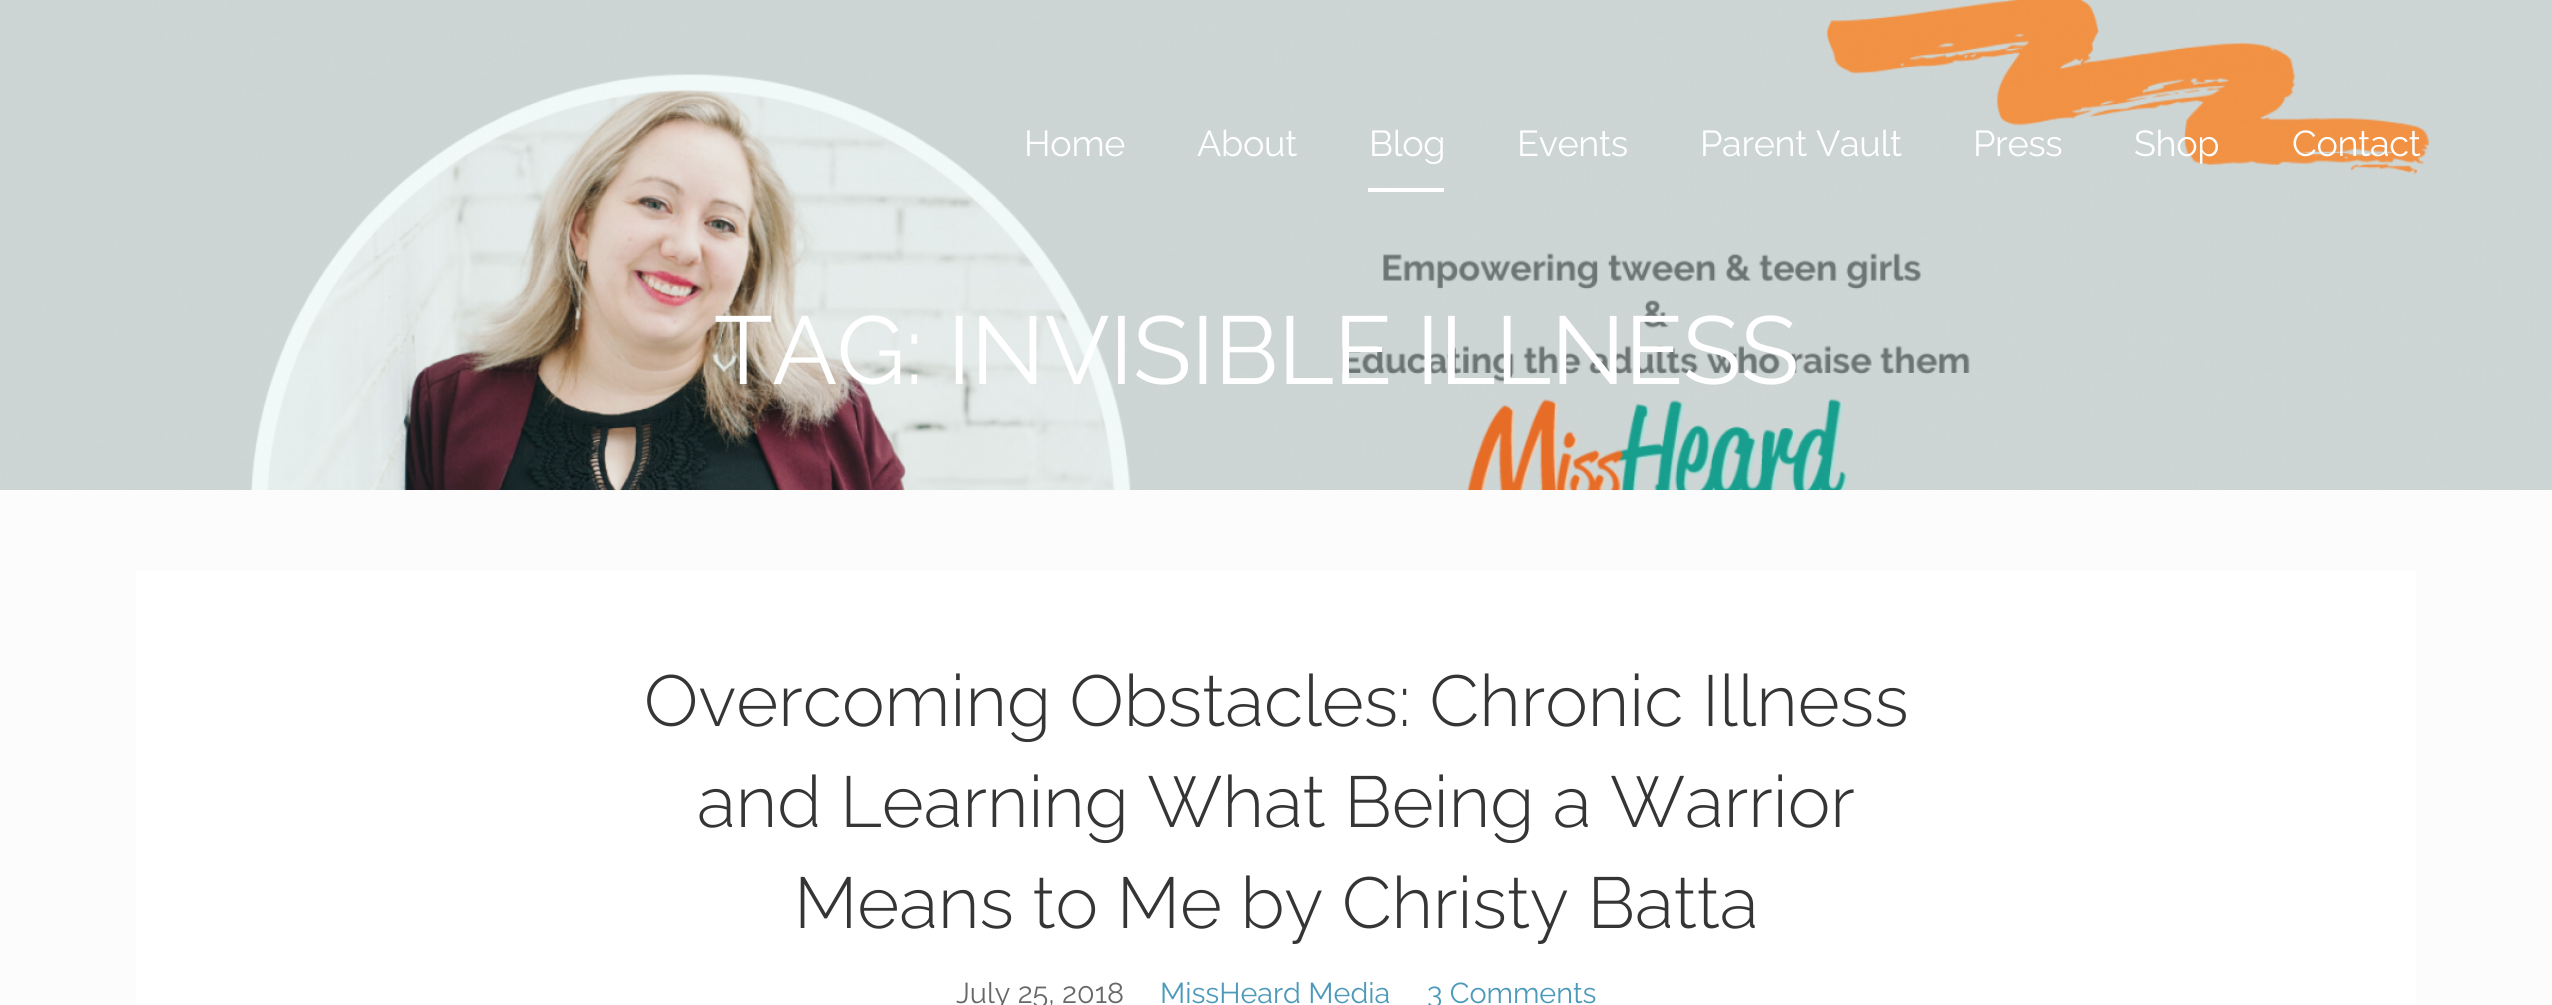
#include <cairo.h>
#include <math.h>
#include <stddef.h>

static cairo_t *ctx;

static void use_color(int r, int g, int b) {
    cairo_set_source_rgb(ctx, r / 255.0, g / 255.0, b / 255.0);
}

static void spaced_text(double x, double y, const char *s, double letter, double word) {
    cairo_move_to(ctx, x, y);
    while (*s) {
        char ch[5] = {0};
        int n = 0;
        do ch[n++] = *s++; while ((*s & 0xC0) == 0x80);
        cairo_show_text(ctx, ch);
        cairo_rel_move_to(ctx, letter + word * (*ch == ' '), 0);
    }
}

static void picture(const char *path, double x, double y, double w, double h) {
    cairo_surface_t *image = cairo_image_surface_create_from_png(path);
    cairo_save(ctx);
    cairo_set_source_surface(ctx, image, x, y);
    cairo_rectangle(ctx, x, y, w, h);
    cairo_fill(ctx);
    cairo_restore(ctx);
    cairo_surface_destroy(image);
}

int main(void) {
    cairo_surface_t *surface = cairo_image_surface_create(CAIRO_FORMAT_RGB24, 2552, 1005);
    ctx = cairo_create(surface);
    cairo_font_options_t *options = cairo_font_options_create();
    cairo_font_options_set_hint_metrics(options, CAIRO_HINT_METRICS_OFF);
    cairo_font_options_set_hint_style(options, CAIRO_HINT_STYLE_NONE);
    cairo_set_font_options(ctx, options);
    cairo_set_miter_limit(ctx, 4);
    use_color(252, 252, 252);
    cairo_paint(ctx);
    picture("img1.png", 0, 0, 2552, 490);
    cairo_select_font_face(ctx, "Raleway", CAIRO_FONT_SLANT_NORMAL, CAIRO_FONT_WEIGHT_NORMAL);
    cairo_set_font_size(ctx, 36);
    use_color(255, 255, 255);
    spaced_text(1024, 156, "Home", -0.3, 0);
    spaced_text(1197, 156, "About", -0.3, 0);
    cairo_rectangle(ctx, 1368, 188, 76, 4);
    cairo_fill(ctx);
    spaced_text(1369, 156, "Blog", -0.3, 0);
    spaced_text(1517, 156, "Events", -0.3, 0);
    spaced_text(1700, 156, "Parent Vault", -0.3, 0);
    spaced_text(1973, 156, "Press", -0.3, 0);
    spaced_text(2134, 156, "Shop", -0.3, 0);
    spaced_text(2292, 156, "Contact", -0.3, 0);
    cairo_set_font_size(ctx, 96);
    spaced_text(714, 384, "TAG: INVISIBLE ILLNESS", -0.3, 0);
    cairo_rectangle(ctx, 136, 570, 2280, 435);
    cairo_fill(ctx);
    cairo_select_font_face(ctx, "Raleway Light", CAIRO_FONT_SLANT_NORMAL, CAIRO_FONT_WEIGHT_NORMAL);
    cairo_set_font_size(ctx, 72);
    use_color(53, 53, 53);
    cairo_move_to(ctx, 644, 726);
    cairo_show_text(ctx, "Overcoming Obstacles: Chronic Illness");
    cairo_move_to(ctx, 697, 827);
    cairo_show_text(ctx, "and Learning What Being a Warrior");
    cairo_move_to(ctx, 794, 928);
    cairo_show_text(ctx, "Means to Me by Christy Batta");
    cairo_select_font_face(ctx, "Raleway", CAIRO_FONT_SLANT_NORMAL, CAIRO_FONT_WEIGHT_NORMAL);
    cairo_set_font_size(ctx, 28.75);
    use_color(104, 104, 104);
    cairo_move_to(ctx, 956, 1003);
    cairo_show_text(ctx, "July 25, 2018");
    use_color(76, 153, 186);
    cairo_move_to(ctx, 1160, 1003);
    cairo_show_text(ctx, "MissHeard Media");
    cairo_move_to(ctx, 1427, 1003);
    cairo_show_text(ctx, "3 Comments");
    cairo_surface_write_to_png(surface, "result.png");
    cairo_font_options_destroy(options);
    cairo_destroy(ctx);
    cairo_surface_destroy(surface);
    return 0;
}
